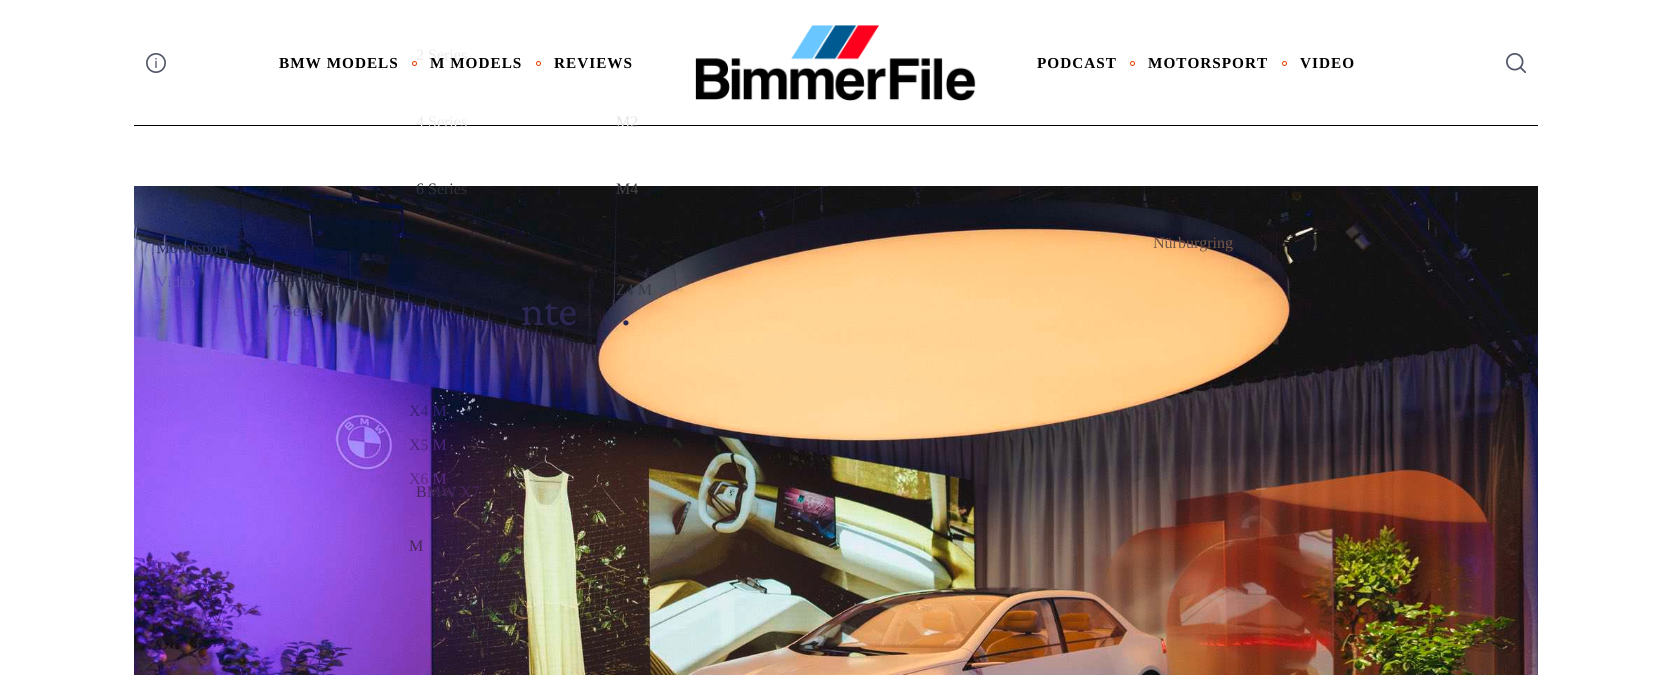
#include <cairo.h>
#include <math.h>
#include <stddef.h>

static cairo_t *ctx;

static void use_color(int r, int g, int b) {
    cairo_set_source_rgb(ctx, r / 255.0, g / 255.0, b / 255.0);
}

static void spaced_text(double x, double y, const char *s, double letter, double word) {
    cairo_move_to(ctx, x, y);
    while (*s) {
        char ch[5] = {0};
        int n = 0;
        do ch[n++] = *s++; while ((*s & 0xC0) == 0x80);
        cairo_show_text(ctx, ch);
        cairo_rel_move_to(ctx, letter + word * (*ch == ' '), 0);
    }
}

static void picture(const char *path, double x, double y, double w, double h) {
    cairo_surface_t *image = cairo_image_surface_create_from_png(path);
    cairo_save(ctx);
    cairo_set_source_surface(ctx, image, x, y);
    cairo_rectangle(ctx, x, y, w, h);
    cairo_fill(ctx);
    cairo_restore(ctx);
    cairo_surface_destroy(image);
}

int main(void) {
    cairo_surface_t *surface = cairo_image_surface_create(CAIRO_FORMAT_RGB24, 1671, 675);
    ctx = cairo_create(surface);
    cairo_font_options_t *options = cairo_font_options_create();
    cairo_font_options_set_hint_metrics(options, CAIRO_HINT_METRICS_OFF);
    cairo_font_options_set_hint_style(options, CAIRO_HINT_STYLE_NONE);
    cairo_set_font_options(ctx, options);
    cairo_set_miter_limit(ctx, 4);
    use_color(255, 255, 255);
    cairo_paint(ctx);
    cairo_select_font_face(ctx, "Liberation Serif", CAIRO_FONT_SLANT_NORMAL, CAIRO_FONT_WEIGHT_NORMAL);
    cairo_set_font_size(ctx, 16);
    use_color(235, 235, 235);
    cairo_move_to(ctx, 416, 60);
    cairo_show_text(ctx, "2 Series");
    use_color(0, 0, 0);
    cairo_rectangle(ctx, 134, 125, 1404, 1);
    cairo_fill(ctx);
    use_color(235, 235, 235);
    cairo_move_to(ctx, 416, 127);
    cairo_show_text(ctx, "4 Series");
    picture("img4.png", 134, 186, 1404, 489);
    use_color(47, 49, 55);
    cairo_move_to(ctx, 416, 194);
    cairo_show_text(ctx, "6 Series");
    use_color(71, 36, 97);
    cairo_move_to(ctx, 416, 497);
    cairo_show_text(ctx, "BMW X7");
    use_color(228, 228, 228);
    cairo_move_to(ctx, 616, 127);
    cairo_show_text(ctx, "M2");
    use_color(69, 69, 71);
    cairo_move_to(ctx, 616, 194);
    cairo_show_text(ctx, "M4");
    use_color(54, 56, 67);
    cairo_move_to(ctx, 616, 295);
    cairo_show_text(ctx, "Z4 M");
    use_color(116, 87, 70);
    cairo_move_to(ctx, 1153, 248);
    cairo_show_text(ctx, "Nürburgring");
    picture("img1.png", 146, 53, 20, 20);
    use_color(46, 50, 98);
    cairo_move_to(ctx, 156, 253);
    cairo_show_text(ctx, "Motorsport");
    use_color(97, 81, 190);
    cairo_move_to(ctx, 156, 287);
    cairo_show_text(ctx, "Video");
    cairo_select_font_face(ctx, "Liberation Serif", CAIRO_FONT_SLANT_NORMAL, CAIRO_FONT_WEIGHT_BOLD);
    cairo_set_font_size(ctx, 15.25);
    use_color(0, 0, 0);
    spaced_text(279, 68, "BMW MODELS", 1, 0);
    cairo_new_path(ctx);
    cairo_arc(ctx, 414.5, 63.5, 2, 0, 2 * M_PI);
    use_color(234, 62, 0);
    cairo_set_line_width(ctx, 1);
    cairo_stroke(ctx);
    cairo_select_font_face(ctx, "Liberation Serif", CAIRO_FONT_SLANT_NORMAL, CAIRO_FONT_WEIGHT_NORMAL);
    cairo_set_font_size(ctx, 16);
    use_color(45, 46, 75);
    cairo_move_to(ctx, 272, 282);
    cairo_show_text(ctx, "6 Series");
    use_color(78, 68, 149);
    cairo_move_to(ctx, 272, 316);
    cairo_show_text(ctx, "7 Series");
    use_color(107, 75, 215);
    cairo_move_to(ctx, 305, 349);
    cairo_show_text(ctx, "i");
    cairo_select_font_face(ctx, "Liberation Serif", CAIRO_FONT_SLANT_NORMAL, CAIRO_FONT_WEIGHT_BOLD);
    cairo_set_font_size(ctx, 15.25);
    use_color(0, 0, 0);
    spaced_text(430, 68, "M MODELS", 1, 0);
    cairo_new_path(ctx);
    cairo_arc(ctx, 538.5, 63.5, 2, 0, 2 * M_PI);
    use_color(234, 62, 0);
    cairo_stroke(ctx);
    cairo_select_font_face(ctx, "Liberation Serif", CAIRO_FONT_SLANT_NORMAL, CAIRO_FONT_WEIGHT_NORMAL);
    cairo_set_font_size(ctx, 16);
    use_color(55, 31, 119);
    cairo_move_to(ctx, 409, 416);
    cairo_show_text(ctx, "X4 M");
    use_color(77, 36, 128);
    cairo_move_to(ctx, 409, 450);
    cairo_show_text(ctx, "X5 M");
    use_color(91, 42, 134);
    cairo_move_to(ctx, 409, 484);
    cairo_show_text(ctx, "X6 M");
    use_color(69, 39, 86);
    cairo_move_to(ctx, 409, 551);
    cairo_show_text(ctx, "M");
    cairo_select_font_face(ctx, "Liberation Serif", CAIRO_FONT_SLANT_NORMAL, CAIRO_FONT_WEIGHT_BOLD);
    cairo_set_font_size(ctx, 15.25);
    use_color(0, 0, 0);
    spaced_text(554, 68, "REVIEWS", 1, 0);
    picture("img2.png", 695, 25, 281, 76);
    spaced_text(1037, 68, "PODCAST", 1, 0);
    cairo_new_path(ctx);
    cairo_arc(ctx, 1132.5, 63.5, 2, 0, 2 * M_PI);
    use_color(234, 62, 0);
    cairo_stroke(ctx);
    use_color(0, 0, 0);
    spaced_text(1148, 68, "MOTORSPORT", 1, 0);
    cairo_new_path(ctx);
    cairo_arc(ctx, 1284.5, 63.5, 2, 0, 2 * M_PI);
    use_color(234, 62, 0);
    cairo_stroke(ctx);
    use_color(0, 0, 0);
    spaced_text(1300, 68, "VIDEO", 1, 0);
    picture("img3.png", 1506, 53, 20, 20);
    cairo_select_font_face(ctx, "Crimson Pro", CAIRO_FONT_SLANT_NORMAL, CAIRO_FONT_WEIGHT_NORMAL);
    cairo_set_font_size(ctx, 43);
    use_color(43, 38, 82);
    cairo_move_to(ctx, 521, 325);
    cairo_show_text(ctx, "nte");
    cairo_move_to(ctx, 621, 325);
    cairo_show_text(ctx, ".");
    cairo_surface_write_to_png(surface, "result.png");
    cairo_font_options_destroy(options);
    cairo_destroy(ctx);
    cairo_surface_destroy(surface);
    return 0;
}
